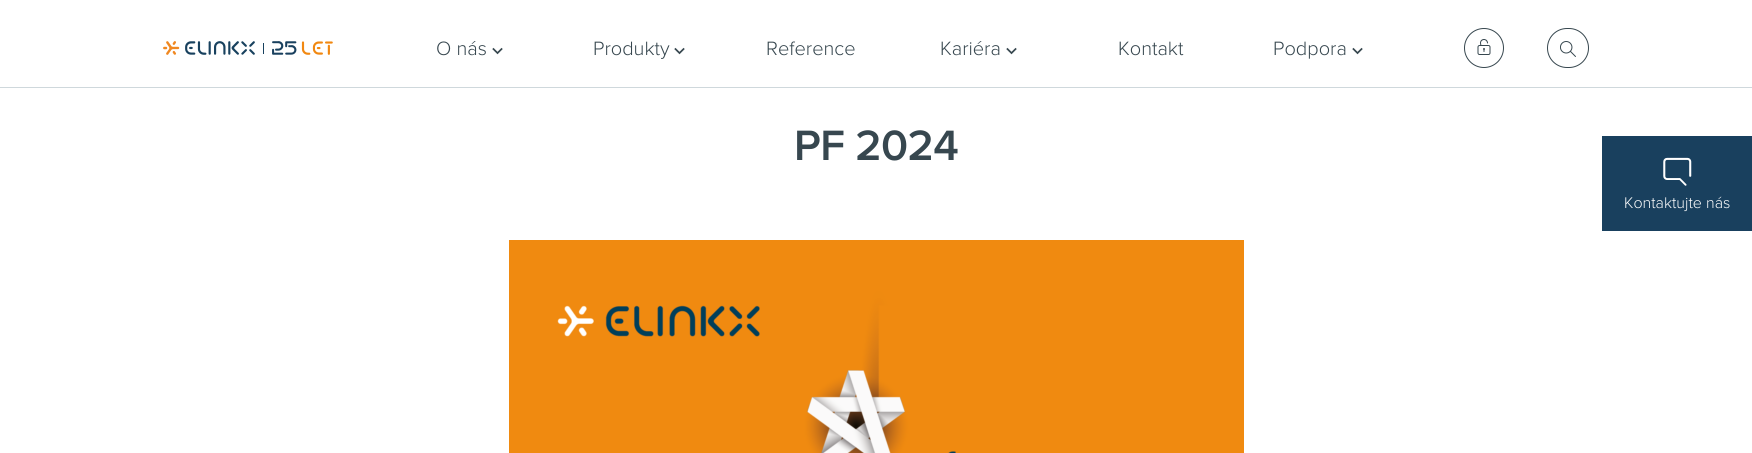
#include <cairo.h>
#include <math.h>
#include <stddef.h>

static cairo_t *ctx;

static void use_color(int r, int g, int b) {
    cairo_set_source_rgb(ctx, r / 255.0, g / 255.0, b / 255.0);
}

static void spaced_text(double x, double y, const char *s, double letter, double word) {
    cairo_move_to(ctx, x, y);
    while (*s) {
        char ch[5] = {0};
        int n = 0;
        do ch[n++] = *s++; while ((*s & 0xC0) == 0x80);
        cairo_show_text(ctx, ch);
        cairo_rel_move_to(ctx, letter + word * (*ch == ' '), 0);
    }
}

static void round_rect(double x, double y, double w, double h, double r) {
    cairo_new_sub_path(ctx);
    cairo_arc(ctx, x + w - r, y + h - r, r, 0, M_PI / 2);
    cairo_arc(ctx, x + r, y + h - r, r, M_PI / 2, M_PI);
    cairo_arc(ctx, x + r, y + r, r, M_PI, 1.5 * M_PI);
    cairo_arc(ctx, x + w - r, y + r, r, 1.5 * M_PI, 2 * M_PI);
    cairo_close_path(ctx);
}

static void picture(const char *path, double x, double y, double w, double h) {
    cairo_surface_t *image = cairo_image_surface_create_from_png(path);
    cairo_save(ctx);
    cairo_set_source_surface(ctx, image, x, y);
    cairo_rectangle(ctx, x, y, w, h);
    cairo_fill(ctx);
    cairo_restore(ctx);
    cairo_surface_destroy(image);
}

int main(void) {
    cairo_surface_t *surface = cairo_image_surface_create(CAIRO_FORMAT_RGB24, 1752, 453);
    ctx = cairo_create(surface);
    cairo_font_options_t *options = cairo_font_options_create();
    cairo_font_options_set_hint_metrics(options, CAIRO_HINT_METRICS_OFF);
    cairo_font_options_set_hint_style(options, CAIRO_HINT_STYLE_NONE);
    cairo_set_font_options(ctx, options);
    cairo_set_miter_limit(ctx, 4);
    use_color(255, 255, 255);
    cairo_paint(ctx);
    use_color(207, 216, 220);
    cairo_rectangle(ctx, 0, 87, 1752, 1);
    cairo_fill(ctx);
    picture("img1.png", 163, 41, 170, 14);
    cairo_select_font_face(ctx, "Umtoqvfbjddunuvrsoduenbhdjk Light", CAIRO_FONT_SLANT_NORMAL, CAIRO_FONT_WEIGHT_NORMAL);
    cairo_set_font_size(ctx, 20);
    use_color(55, 71, 79);
    cairo_move_to(ctx, 436, 55);
    cairo_show_text(ctx, "O nás");
    picture("img2.png", 492, 47, 11, 8);
    cairo_move_to(ctx, 593, 55);
    cairo_show_text(ctx, "Produkty");
    picture("img2.png", 674, 47, 11, 8);
    cairo_move_to(ctx, 766, 55);
    cairo_show_text(ctx, "Reference");
    cairo_move_to(ctx, 940, 55);
    cairo_show_text(ctx, "Kariéra");
    picture("img2.png", 1006, 47, 11, 8);
    cairo_move_to(ctx, 1118, 55);
    cairo_show_text(ctx, "Kontakt");
    cairo_move_to(ctx, 1273, 55);
    cairo_show_text(ctx, "Podpora");
    picture("img2.png", 1352, 47, 11, 8);
    cairo_arc(ctx, 1484, 48, 19.5, 0, 2 * M_PI);
    cairo_set_line_width(ctx, 1);
    cairo_stroke(ctx);
    picture("img3.png", 1477, 39, 14, 16);
    round_rect(1547.5, 28.5, 41, 39, 19.5);
    cairo_stroke(ctx);
    picture("img4.png", 1560, 41, 16, 16);
    cairo_select_font_face(ctx, "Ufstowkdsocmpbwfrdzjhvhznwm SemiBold", CAIRO_FONT_SLANT_NORMAL, CAIRO_FONT_WEIGHT_NORMAL);
    cairo_set_font_size(ctx, 44);
    spaced_text(794, 160, "PF 2024", -0.5, 0);
    picture("img5.png", 509, 240, 735, 213);
    use_color(25, 64, 94);
    cairo_rectangle(ctx, 1602, 136, 150, 95);
    cairo_fill(ctx);
    picture("img6.png", 1663, 157, 29, 29);
    cairo_select_font_face(ctx, "Umtoqvfbjddunuvrsoduenbhdjk Light", CAIRO_FONT_SLANT_NORMAL, CAIRO_FONT_WEIGHT_NORMAL);
    cairo_set_font_size(ctx, 16);
    use_color(255, 255, 255);
    cairo_move_to(ctx, 1624, 208);
    cairo_show_text(ctx, "Kontaktujte nás");
    cairo_surface_write_to_png(surface, "result.png");
    cairo_font_options_destroy(options);
    cairo_destroy(ctx);
    cairo_surface_destroy(surface);
    return 0;
}
